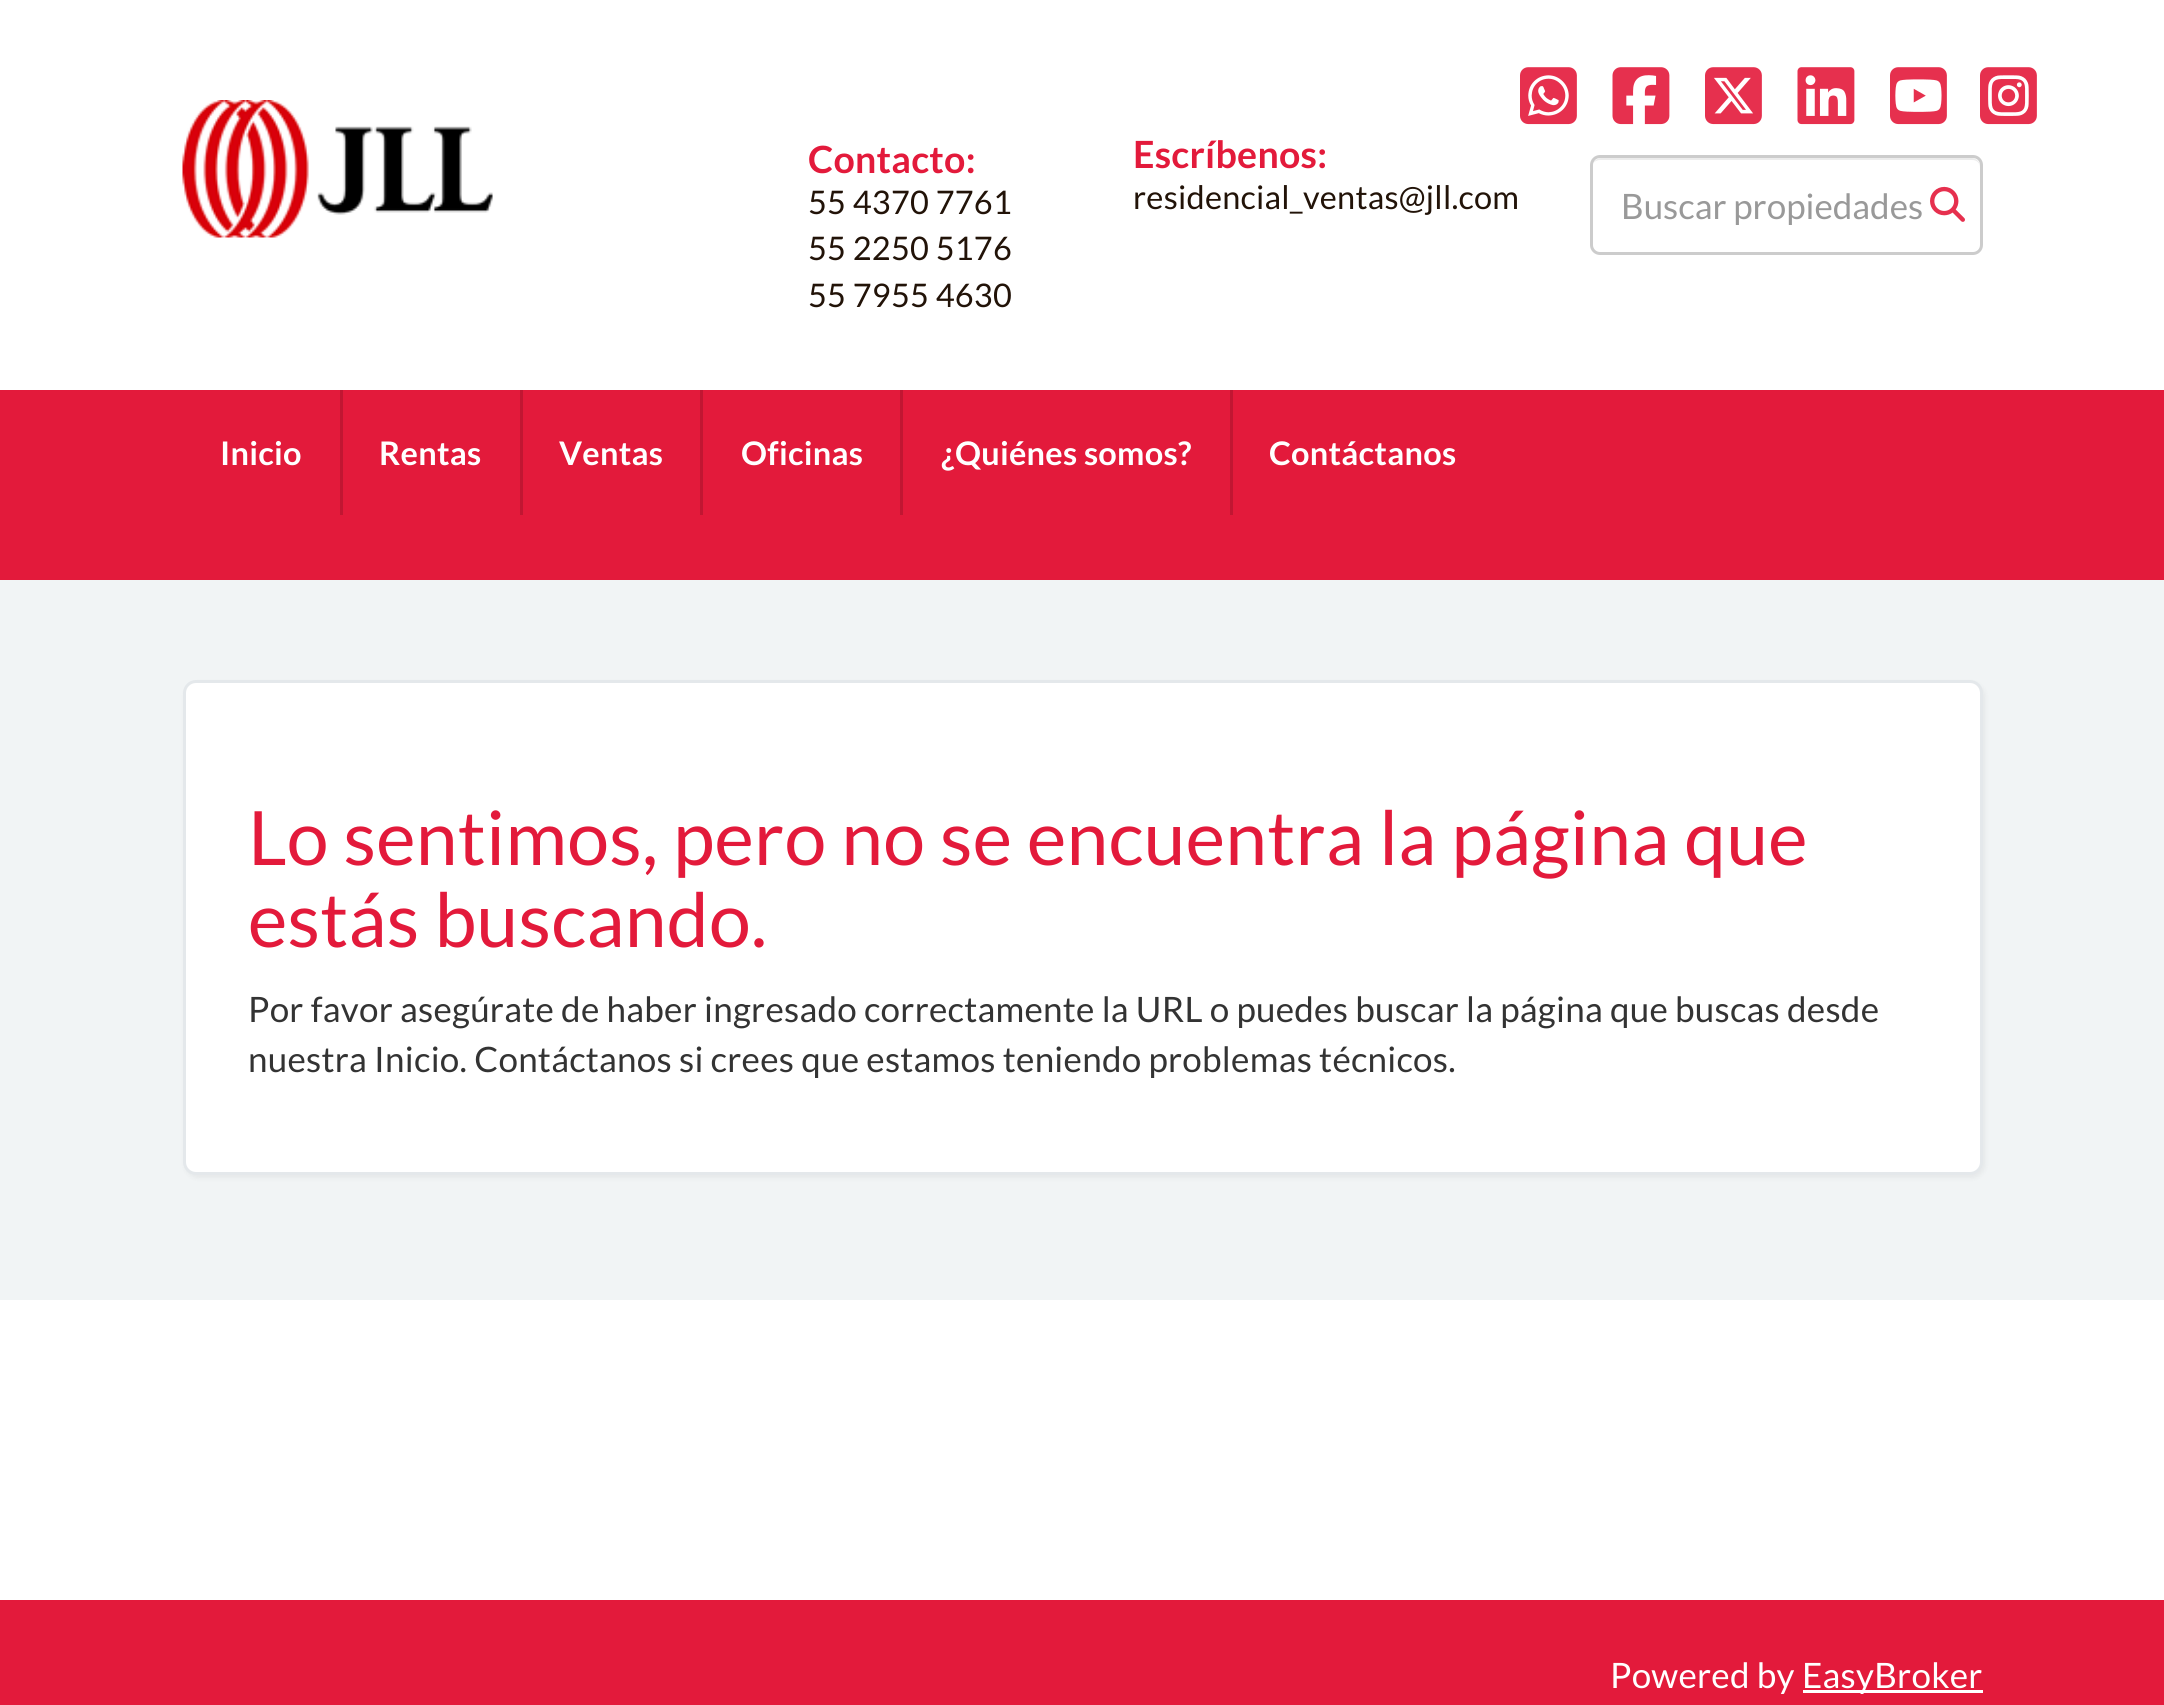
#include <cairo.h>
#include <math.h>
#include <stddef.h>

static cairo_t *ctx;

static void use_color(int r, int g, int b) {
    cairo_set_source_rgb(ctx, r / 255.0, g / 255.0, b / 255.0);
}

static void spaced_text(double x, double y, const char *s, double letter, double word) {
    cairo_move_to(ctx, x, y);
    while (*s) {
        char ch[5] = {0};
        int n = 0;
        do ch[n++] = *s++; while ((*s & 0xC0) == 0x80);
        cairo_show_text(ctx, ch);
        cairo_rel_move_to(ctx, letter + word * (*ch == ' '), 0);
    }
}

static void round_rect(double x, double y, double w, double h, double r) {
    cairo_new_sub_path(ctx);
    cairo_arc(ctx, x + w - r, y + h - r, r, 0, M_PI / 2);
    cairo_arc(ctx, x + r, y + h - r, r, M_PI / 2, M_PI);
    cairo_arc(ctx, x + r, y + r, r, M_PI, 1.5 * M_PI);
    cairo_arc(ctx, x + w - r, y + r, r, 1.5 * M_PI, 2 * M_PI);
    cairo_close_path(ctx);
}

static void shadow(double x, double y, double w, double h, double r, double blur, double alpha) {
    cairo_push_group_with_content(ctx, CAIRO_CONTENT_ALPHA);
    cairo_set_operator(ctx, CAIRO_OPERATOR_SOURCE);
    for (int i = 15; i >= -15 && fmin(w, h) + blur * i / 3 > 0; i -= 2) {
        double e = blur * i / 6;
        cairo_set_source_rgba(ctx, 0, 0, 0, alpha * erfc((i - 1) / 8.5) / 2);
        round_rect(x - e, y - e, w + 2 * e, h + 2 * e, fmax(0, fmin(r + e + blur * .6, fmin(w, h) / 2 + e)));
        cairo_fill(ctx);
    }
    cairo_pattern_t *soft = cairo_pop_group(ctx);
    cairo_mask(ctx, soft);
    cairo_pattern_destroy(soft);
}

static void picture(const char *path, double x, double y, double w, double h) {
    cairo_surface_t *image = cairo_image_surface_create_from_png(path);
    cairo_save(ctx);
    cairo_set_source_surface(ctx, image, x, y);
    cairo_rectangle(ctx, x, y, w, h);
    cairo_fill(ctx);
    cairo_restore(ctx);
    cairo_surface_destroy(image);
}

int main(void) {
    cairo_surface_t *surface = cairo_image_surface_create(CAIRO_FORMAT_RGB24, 2164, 1705);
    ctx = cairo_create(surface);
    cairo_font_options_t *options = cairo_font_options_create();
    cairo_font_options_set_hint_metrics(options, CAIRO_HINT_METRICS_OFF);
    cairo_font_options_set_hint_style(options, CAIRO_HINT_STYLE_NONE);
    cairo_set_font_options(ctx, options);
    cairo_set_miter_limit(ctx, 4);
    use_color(241, 244, 245);
    cairo_paint(ctx);
    use_color(255, 255, 255);
    cairo_rectangle(ctx, 0, 0, 2164, 390);
    cairo_fill(ctx);
    picture("img1.png", 182, 100, 311, 138);
    cairo_select_font_face(ctx, "Lato", CAIRO_FONT_SLANT_NORMAL, CAIRO_FONT_WEIGHT_BOLD);
    cairo_set_font_size(ctx, 37.5);
    use_color(227, 26, 59);
    spaced_text(808, 173, "Contacto:", 0.25, 0);
    cairo_select_font_face(ctx, "Lato", CAIRO_FONT_SLANT_NORMAL, CAIRO_FONT_WEIGHT_NORMAL);
    cairo_set_font_size(ctx, 32.5);
    use_color(34, 19, 8);
    spaced_text(808, 214, "55 4370 7761", 0.25, 0);
    spaced_text(808, 260, "55 2250 5176", 0.25, 0);
    spaced_text(808, 307, "55 7955 4630", 0.25, 0);
    cairo_select_font_face(ctx, "Lato", CAIRO_FONT_SLANT_NORMAL, CAIRO_FONT_WEIGHT_BOLD);
    cairo_set_font_size(ctx, 37.5);
    use_color(227, 26, 59);
    spaced_text(1133, 168, "Escríbenos:", 0.25, 0);
    cairo_select_font_face(ctx, "Lato", CAIRO_FONT_SLANT_NORMAL, CAIRO_FONT_WEIGHT_NORMAL);
    cairo_set_font_size(ctx, 32.5);
    use_color(34, 19, 8);
    spaced_text(1133, 209, "residencial_ventas@jll.com", 0.25, 0);
    picture("img2.png", 1520, 67, 57, 58);
    picture("img3.png", 1612, 67, 58, 58);
    picture("img4.png", 1705, 67, 57, 58);
    picture("img5.png", 1797, 67, 58, 58);
    picture("img6.png", 1890, 67, 57, 58);
    picture("img7.png", 1980, 67, 57, 58);
    use_color(236, 236, 236);
    cairo_new_path(ctx);
    cairo_move_to(ctx, 1600, 160);
    cairo_line_to(ctx, 1972, 160);
    cairo_curve_to(ctx, 1977, 160, 1980, 163, 1980, 168);
    cairo_line_to(ctx, 1980, 166);
    cairo_curve_to(ctx, 1980, 162, 1976, 158, 1972, 158);
    cairo_line_to(ctx, 1601, 158);
    cairo_curve_to(ctx, 1598, 158, 1595, 160, 1593, 163);
    cairo_curve_to(ctx, 1595, 161, 1598, 160, 1600, 160);
    cairo_close_path(ctx);
    cairo_fill(ctx);
    round_rect(1591.5, 156.5, 390, 97, 8.5);
    use_color(204, 204, 204);
    cairo_set_line_width(ctx, 3);
    cairo_stroke(ctx);
    cairo_set_font_size(ctx, 35);
    use_color(153, 153, 153);
    cairo_move_to(ctx, 1621, 219);
    cairo_show_text(ctx, "Buscar propiedades");
    picture("img8.png", 1930, 186, 35, 36);
    use_color(227, 26, 59);
    cairo_rectangle(ctx, 0, 390, 2164, 190);
    cairo_fill(ctx);
    use_color(193, 22, 50);
    cairo_rectangle(ctx, 340, 390, 3, 125);
    cairo_fill(ctx);
    cairo_select_font_face(ctx, "Lato", CAIRO_FONT_SLANT_NORMAL, CAIRO_FONT_WEIGHT_BOLD);
    cairo_set_font_size(ctx, 32.5);
    use_color(255, 255, 255);
    spaced_text(220, 465, "Inicio", 0.25, 0);
    use_color(193, 22, 50);
    cairo_rectangle(ctx, 520, 390, 3, 125);
    cairo_fill(ctx);
    use_color(255, 255, 255);
    spaced_text(379, 465, "Rentas", 0.25, 0);
    use_color(193, 22, 50);
    cairo_rectangle(ctx, 700, 390, 3, 125);
    cairo_fill(ctx);
    use_color(255, 255, 255);
    spaced_text(559, 465, "Ventas", 0.25, 0);
    use_color(193, 22, 50);
    cairo_rectangle(ctx, 900, 390, 3, 125);
    cairo_fill(ctx);
    use_color(255, 255, 255);
    spaced_text(741, 465, "Oficinas", 0.25, 0);
    use_color(193, 22, 50);
    cairo_rectangle(ctx, 1230, 390, 3, 125);
    cairo_fill(ctx);
    use_color(255, 255, 255);
    spaced_text(941, 465, "¿Quiénes somos?", 0.25, 0);
    spaced_text(1269, 465, "Contáctanos", 0.25, 0);
    use_color(0, 0, 0);
    shadow(185, 683, 1800, 495, 13, 2.5, 0.05);
    use_color(255, 255, 255);
    round_rect(184.5, 681.5, 1797, 492, 11.5);
    cairo_fill_preserve(ctx);
    use_color(228, 232, 235);
    cairo_stroke(ctx);
    cairo_select_font_face(ctx, "Lato", CAIRO_FONT_SLANT_NORMAL, CAIRO_FONT_WEIGHT_NORMAL);
    cairo_set_font_size(ctx, 75);
    use_color(227, 26, 59);
    spaced_text(248, 865, "Lo sentimos, pero no se encuentra la página que", 0.25, 0);
    spaced_text(248, 947, "estás buscando.", 0.25, 0);
    cairo_set_font_size(ctx, 35);
    use_color(51, 51, 51);
    spaced_text(248, 1022, "Por favor asegúrate de haber ingresado correctamente la URL o puedes buscar la página que buscas desde", 0.25, 0);
    spaced_text(248, 1072, "nuestra Inicio. Contáctanos si crees que estamos teniendo problemas técnicos.", 0.25, 0);
    use_color(255, 255, 255);
    cairo_rectangle(ctx, 0, 1300, 2164, 300);
    cairo_fill(ctx);
    use_color(227, 26, 59);
    cairo_rectangle(ctx, 0, 1600, 2164, 105);
    cairo_fill(ctx);
    use_color(255, 255, 255);
    spaced_text(1610, 1688, "Powered by", 0.25, 0);
    cairo_rectangle(ctx, 1803, 1690, 180, 3);
    cairo_fill(ctx);
    spaced_text(1802, 1688, "EasyBroker", 0.25, 0);
    cairo_surface_write_to_png(surface, "result.png");
    cairo_font_options_destroy(options);
    cairo_destroy(ctx);
    cairo_surface_destroy(surface);
    return 0;
}
